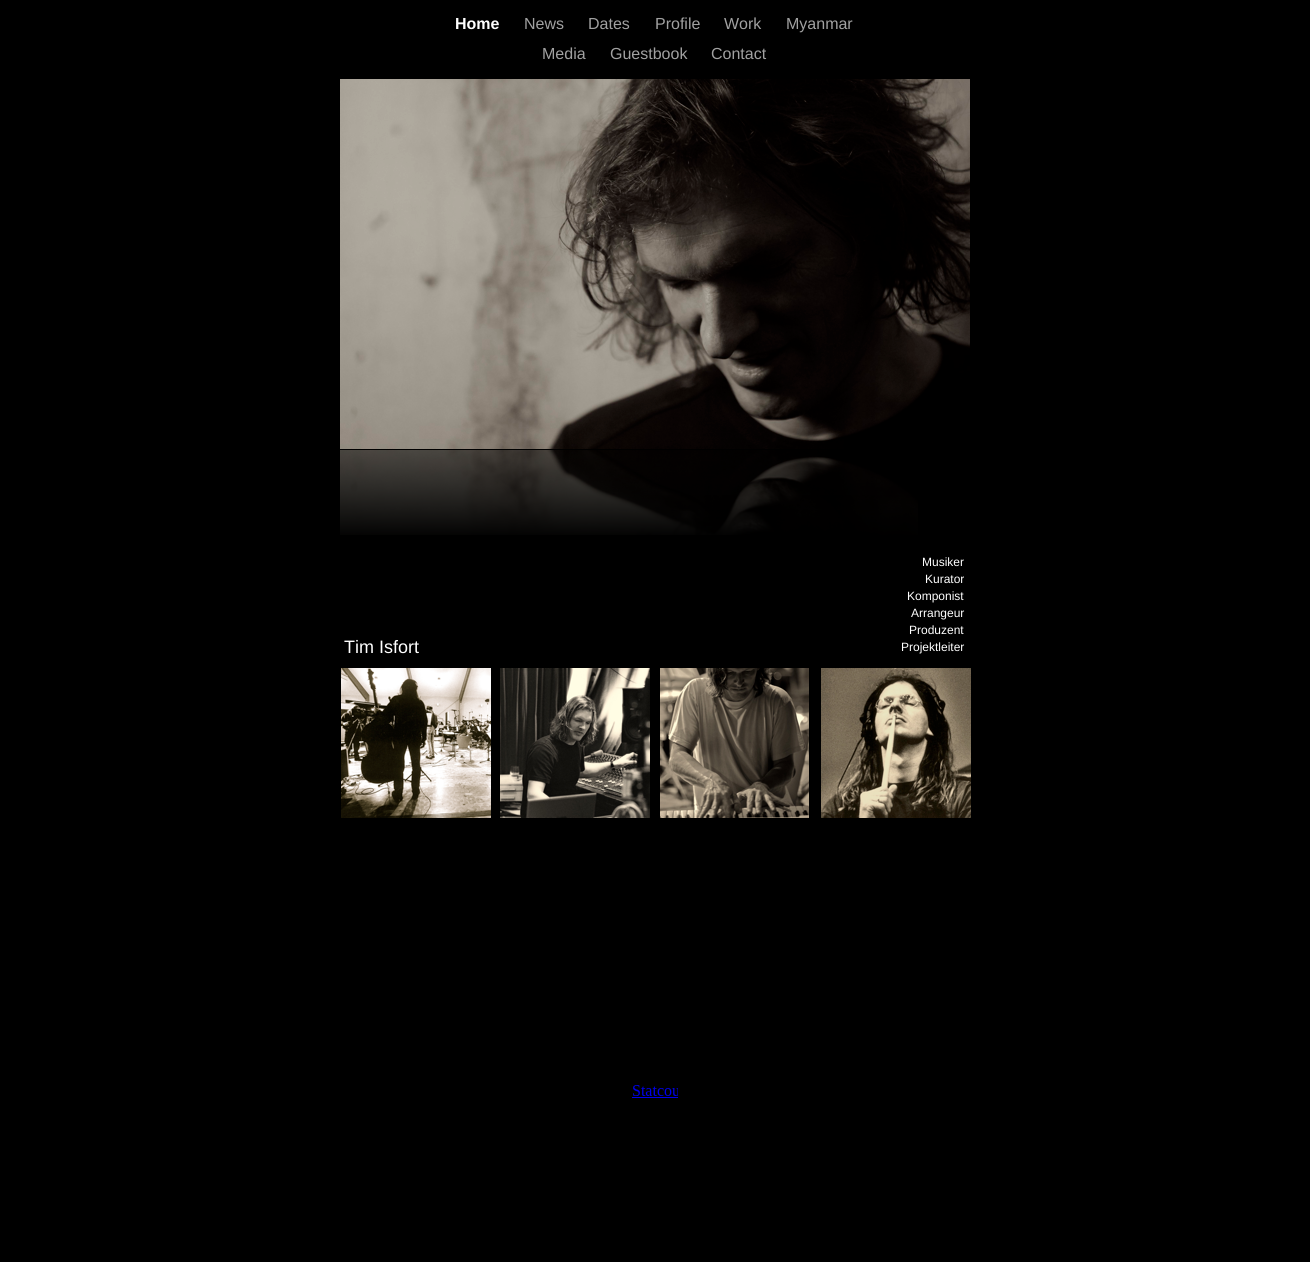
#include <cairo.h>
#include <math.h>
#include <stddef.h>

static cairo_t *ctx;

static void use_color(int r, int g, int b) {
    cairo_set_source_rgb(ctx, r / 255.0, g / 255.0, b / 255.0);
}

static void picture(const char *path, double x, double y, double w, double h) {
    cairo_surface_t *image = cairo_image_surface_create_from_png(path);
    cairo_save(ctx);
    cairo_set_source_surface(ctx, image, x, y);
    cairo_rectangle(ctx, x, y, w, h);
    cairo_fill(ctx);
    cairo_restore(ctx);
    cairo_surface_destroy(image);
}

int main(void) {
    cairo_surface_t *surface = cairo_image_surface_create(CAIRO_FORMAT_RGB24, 1310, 1262);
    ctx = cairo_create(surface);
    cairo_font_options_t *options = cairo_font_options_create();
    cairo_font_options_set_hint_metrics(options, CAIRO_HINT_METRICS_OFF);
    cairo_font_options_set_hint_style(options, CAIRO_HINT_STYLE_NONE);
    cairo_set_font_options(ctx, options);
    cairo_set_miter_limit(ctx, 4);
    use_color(0, 0, 0);
    cairo_paint(ctx);
    cairo_select_font_face(ctx, "Liberation Sans", CAIRO_FONT_SLANT_NORMAL, CAIRO_FONT_WEIGHT_BOLD);
    cairo_set_font_size(ctx, 16);
    use_color(255, 255, 255);
    cairo_move_to(ctx, 455, 29);
    cairo_show_text(ctx, "Home");
    cairo_select_font_face(ctx, "Liberation Sans", CAIRO_FONT_SLANT_NORMAL, CAIRO_FONT_WEIGHT_NORMAL);
    use_color(161, 161, 161);
    cairo_move_to(ctx, 524, 29);
    cairo_show_text(ctx, "News");
    cairo_move_to(ctx, 588, 29);
    cairo_show_text(ctx, "Dates");
    cairo_move_to(ctx, 655, 29);
    cairo_show_text(ctx, "Profile");
    cairo_move_to(ctx, 724, 29);
    cairo_show_text(ctx, "Work");
    cairo_move_to(ctx, 786, 29);
    cairo_show_text(ctx, "Myanmar");
    cairo_move_to(ctx, 542, 59);
    cairo_show_text(ctx, "Media");
    cairo_move_to(ctx, 610, 59);
    cairo_show_text(ctx, "Guestbook");
    cairo_move_to(ctx, 711, 59);
    cairo_show_text(ctx, "Contact");
    picture("img1.png", 340, 79, 630, 370);
    picture("img2.png", 340, 450, 578, 85);
    cairo_set_font_size(ctx, 18);
    use_color(255, 255, 255);
    cairo_move_to(ctx, 344, 653);
    cairo_show_text(ctx, "Tim Isfort");
    cairo_set_font_size(ctx, 12);
    cairo_move_to(ctx, 922, 566);
    cairo_show_text(ctx, "Musiker");
    cairo_move_to(ctx, 925, 583);
    cairo_show_text(ctx, "Kurator");
    cairo_move_to(ctx, 907, 600);
    cairo_show_text(ctx, "Komponist");
    cairo_move_to(ctx, 911, 617);
    cairo_show_text(ctx, "Arrangeur");
    cairo_move_to(ctx, 909, 634);
    cairo_show_text(ctx, "Produzent");
    cairo_move_to(ctx, 901, 651);
    cairo_show_text(ctx, "Projektleiter");
    picture("img3.png", 341, 668, 150, 150);
    picture("img4.png", 500, 668, 150, 150);
    picture("img5.png", 660, 668, 149, 150);
    picture("img6.png", 821, 668, 150, 150);
    picture("img7.png", 632, 1085, 46, 13);
    cairo_surface_write_to_png(surface, "result.png");
    cairo_font_options_destroy(options);
    cairo_destroy(ctx);
    cairo_surface_destroy(surface);
    return 0;
}
